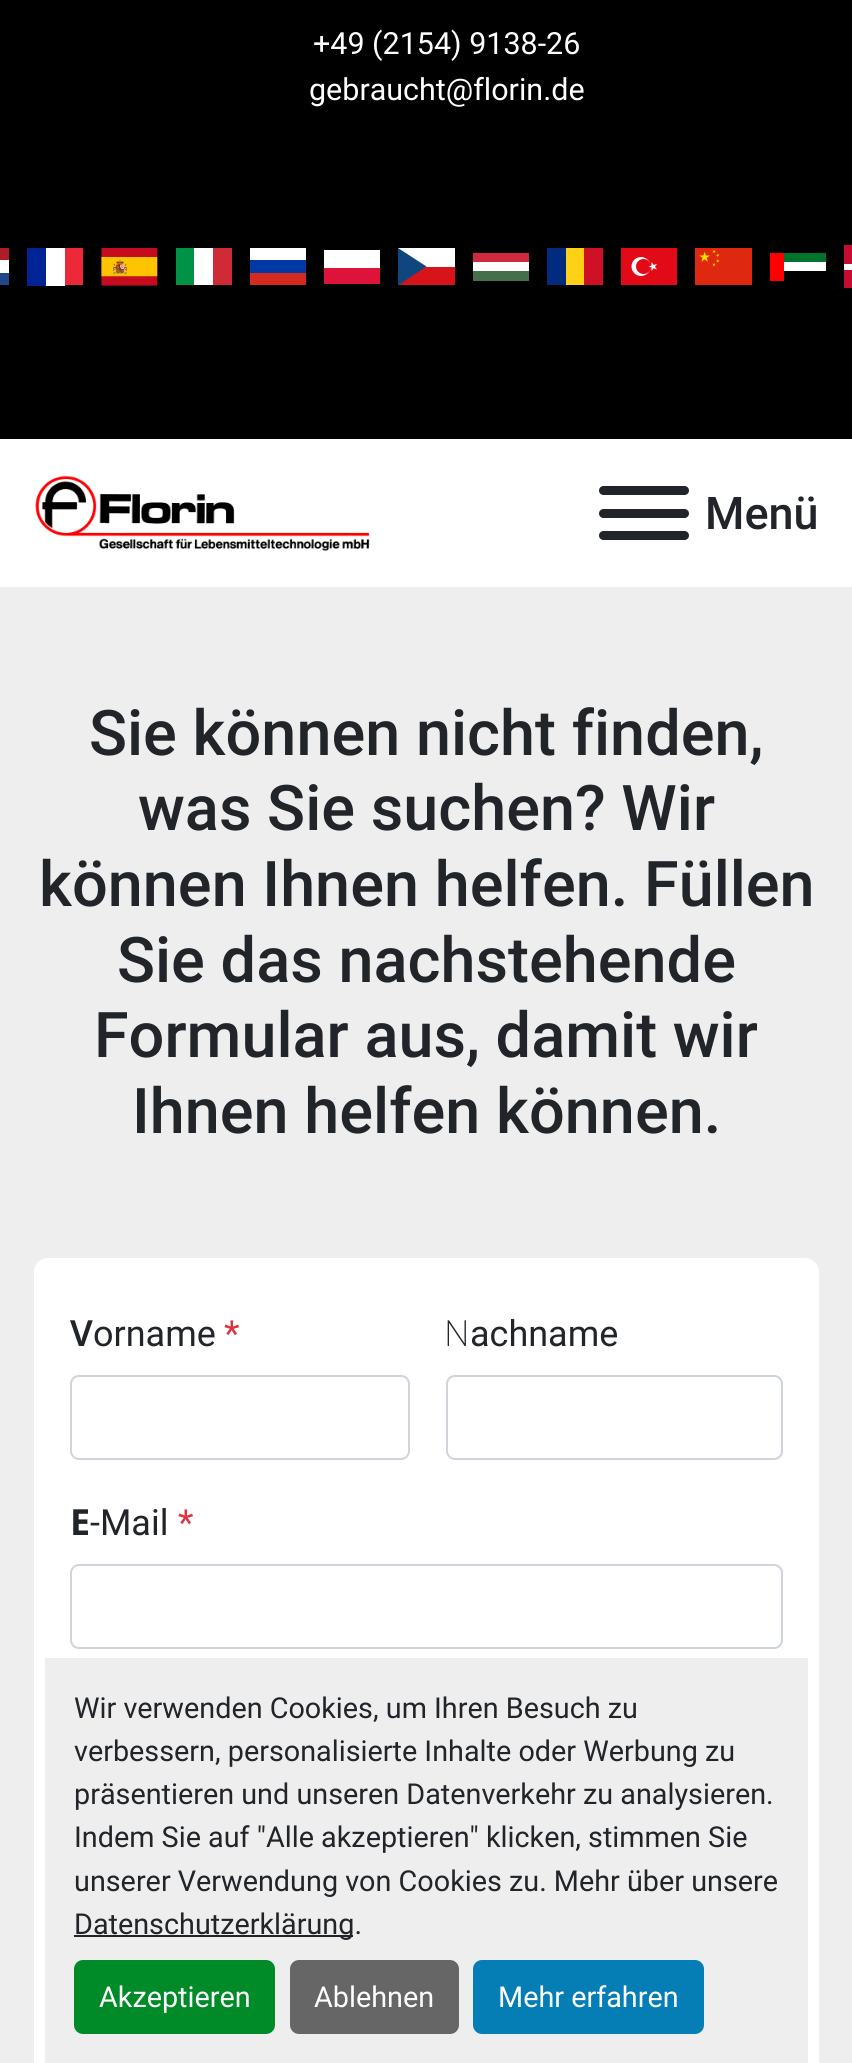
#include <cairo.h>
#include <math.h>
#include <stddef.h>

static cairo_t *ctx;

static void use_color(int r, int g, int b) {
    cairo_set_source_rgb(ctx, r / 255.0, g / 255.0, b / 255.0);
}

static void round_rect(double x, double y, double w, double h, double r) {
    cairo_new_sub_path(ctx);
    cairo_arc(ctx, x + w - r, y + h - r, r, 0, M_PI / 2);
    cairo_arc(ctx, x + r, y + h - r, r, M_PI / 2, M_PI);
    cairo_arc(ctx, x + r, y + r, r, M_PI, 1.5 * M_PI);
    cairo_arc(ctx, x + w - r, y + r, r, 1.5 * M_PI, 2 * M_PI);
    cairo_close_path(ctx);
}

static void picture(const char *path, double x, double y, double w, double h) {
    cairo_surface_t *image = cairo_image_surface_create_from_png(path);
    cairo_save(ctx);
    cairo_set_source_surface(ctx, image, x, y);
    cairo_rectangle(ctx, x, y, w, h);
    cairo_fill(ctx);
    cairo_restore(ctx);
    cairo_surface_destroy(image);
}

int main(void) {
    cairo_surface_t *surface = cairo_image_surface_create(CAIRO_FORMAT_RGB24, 852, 2063);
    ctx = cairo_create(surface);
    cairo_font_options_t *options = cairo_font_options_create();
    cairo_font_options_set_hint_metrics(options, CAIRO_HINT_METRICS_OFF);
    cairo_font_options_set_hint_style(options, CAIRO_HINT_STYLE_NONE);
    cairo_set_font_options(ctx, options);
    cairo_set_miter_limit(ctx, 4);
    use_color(238, 238, 238);
    cairo_paint(ctx);
    use_color(0, 0, 0);
    cairo_rectangle(ctx, 0, 0, 852, 439);
    cairo_fill(ctx);
    cairo_select_font_face(ctx, "Roboto", CAIRO_FONT_SLANT_NORMAL, CAIRO_FONT_WEIGHT_NORMAL);
    cairo_set_font_size(ctx, 30.5);
    use_color(255, 255, 255);
    cairo_move_to(ctx, 313, 54);
    cairo_show_text(ctx, "+49 (2154) 9138-26");
    cairo_move_to(ctx, 309, 100);
    cairo_show_text(ctx, "gebraucht@florin.de");
    use_color(174, 28, 40);
    cairo_rectangle(ctx, 0, 248, 9, 12);
    cairo_fill(ctx);
    use_color(255, 255, 255);
    cairo_rectangle(ctx, 0, 260, 9, 13);
    cairo_fill(ctx);
    use_color(33, 70, 139);
    cairo_rectangle(ctx, 0, 273, 9, 12);
    cairo_fill(ctx);
    use_color(0, 35, 149);
    cairo_rectangle(ctx, 27, 248, 19, 38);
    cairo_fill(ctx);
    use_color(255, 255, 255);
    cairo_rectangle(ctx, 46, 248, 19, 38);
    cairo_fill(ctx);
    use_color(237, 41, 57);
    cairo_rectangle(ctx, 65, 248, 18, 37);
    cairo_fill(ctx);
    picture("img1.png", 101, 248, 57, 38);
    use_color(0, 146, 70);
    cairo_rectangle(ctx, 176, 248, 18, 37);
    cairo_fill(ctx);
    use_color(255, 255, 255);
    cairo_rectangle(ctx, 194, 248, 19, 37);
    cairo_fill(ctx);
    use_color(206, 43, 55);
    cairo_rectangle(ctx, 213, 248, 19, 37);
    cairo_fill(ctx);
    use_color(255, 255, 255);
    cairo_rectangle(ctx, 250, 248, 56, 12);
    cairo_fill(ctx);
    use_color(0, 57, 166);
    cairo_rectangle(ctx, 250, 260, 56, 13);
    cairo_fill(ctx);
    use_color(213, 43, 30);
    cairo_rectangle(ctx, 250, 273, 56, 12);
    cairo_fill(ctx);
    use_color(255, 255, 255);
    cairo_rectangle(ctx, 324, 250, 56, 18);
    cairo_fill(ctx);
    use_color(220, 20, 60);
    cairo_rectangle(ctx, 324, 268, 56, 16);
    cairo_fill(ctx);
    use_color(255, 255, 255);
    cairo_rectangle(ctx, 398, 248, 57, 19);
    cairo_fill(ctx);
    use_color(215, 20, 26);
    cairo_rectangle(ctx, 398, 267, 57, 18);
    cairo_fill(ctx);
    use_color(17, 69, 126);
    cairo_new_path(ctx);
    cairo_move_to(ctx, 426.5, 266.5);
    cairo_line_to(ctx, 398, 248);
    cairo_line_to(ctx, 398, 285.5);
    cairo_close_path(ctx);
    cairo_fill(ctx);
    use_color(205, 42, 62);
    cairo_rectangle(ctx, 473, 253, 56, 9);
    cairo_fill(ctx);
    use_color(255, 255, 255);
    cairo_rectangle(ctx, 473, 262, 56, 9);
    cairo_fill(ctx);
    use_color(67, 111, 77);
    cairo_rectangle(ctx, 473, 271, 56, 10);
    cairo_fill(ctx);
    use_color(0, 43, 127);
    cairo_rectangle(ctx, 547, 248, 19, 37);
    cairo_fill(ctx);
    use_color(252, 209, 22);
    cairo_rectangle(ctx, 566, 248, 18, 37);
    cairo_fill(ctx);
    use_color(206, 17, 38);
    cairo_rectangle(ctx, 584, 248, 19, 37);
    cairo_fill(ctx);
    use_color(227, 10, 23);
    cairo_rectangle(ctx, 621, 248, 56, 37);
    cairo_fill(ctx);
    use_color(255, 255, 255);
    cairo_arc(ctx, 641, 266.5, 9.5, 0, 2 * M_PI);
    cairo_fill(ctx);
    use_color(227, 10, 23);
    cairo_arc(ctx, 643.5, 266.5, 7.5, 0, 2 * M_PI);
    cairo_fill(ctx);
    use_color(255, 255, 255);
    cairo_new_path(ctx);
    cairo_move_to(ctx, 648.5, 266.5);
    cairo_line_to(ctx, 657, 269.5);
    cairo_line_to(ctx, 651.5, 262);
    cairo_line_to(ctx, 651.5, 271);
    cairo_line_to(ctx, 657, 264);
    cairo_close_path(ctx);
    cairo_fill(ctx);
    picture("img2.png", 695, 248, 57, 37);
    use_color(255, 0, 0);
    cairo_rectangle(ctx, 770, 253, 14, 28);
    cairo_fill(ctx);
    use_color(0, 115, 47);
    cairo_rectangle(ctx, 784, 253, 42, 9);
    cairo_fill(ctx);
    use_color(255, 255, 255);
    cairo_rectangle(ctx, 784, 262, 42, 9);
    cairo_fill(ctx);
    use_color(198, 12, 48);
    cairo_rectangle(ctx, 844, 245, 8, 43);
    cairo_fill(ctx);
    use_color(255, 255, 255);
    cairo_rectangle(ctx, 844, 264, 8, 6);
    cairo_fill(ctx);
    cairo_rectangle(ctx, 0, 439, 852, 148);
    cairo_fill(ctx);
    picture("img3.png", 35, 475, 335, 77);
    use_color(33, 37, 41);
    round_rect(599, 509, 90, 9, 4.5);
    cairo_fill(ctx);
    round_rect(599, 486, 90, 9, 4.5);
    cairo_fill(ctx);
    round_rect(599, 531, 90, 9, 4.5);
    cairo_fill(ctx);
    cairo_select_font_face(ctx, "Roboto Medium", CAIRO_FONT_SLANT_NORMAL, CAIRO_FONT_WEIGHT_NORMAL);
    cairo_set_font_size(ctx, 45);
    cairo_move_to(ctx, 705, 529);
    cairo_show_text(ctx, "Menü");
    cairo_set_font_size(ctx, 63);
    cairo_move_to(ctx, 89, 755);
    cairo_show_text(ctx, "Sie können nicht finden,");
    cairo_move_to(ctx, 138, 830);
    cairo_show_text(ctx, "was Sie suchen? Wir");
    cairo_move_to(ctx, 39, 906);
    cairo_show_text(ctx, "können Ihnen helfen. Füllen");
    cairo_move_to(ctx, 117, 982);
    cairo_show_text(ctx, "Sie das nachstehende");
    cairo_move_to(ctx, 94, 1057);
    cairo_show_text(ctx, "Formular aus, damit wir");
    cairo_move_to(ctx, 132, 1133);
    cairo_show_text(ctx, "Ihnen helfen können.");
    use_color(255, 255, 255);
    round_rect(34, 1258, 785, 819, 14);
    cairo_fill(ctx);
    cairo_select_font_face(ctx, "Noto Sans SemiBold", CAIRO_FONT_SLANT_NORMAL, CAIRO_FONT_WEIGHT_NORMAL);
    cairo_set_font_size(ctx, 36);
    use_color(33, 37, 41);
    cairo_move_to(ctx, 70, 1346);
    cairo_show_text(ctx, "V");
    cairo_select_font_face(ctx, "Roboto", CAIRO_FONT_SLANT_NORMAL, CAIRO_FONT_WEIGHT_NORMAL);
    cairo_move_to(ctx, 93, 1346);
    cairo_show_text(ctx, "orname");
    use_color(220, 53, 69);
    cairo_move_to(ctx, 224, 1346);
    cairo_show_text(ctx, "*");
    round_rect(71, 1376, 338, 83, 8);
    use_color(206, 212, 218);
    cairo_stroke(ctx);
    cairo_select_font_face(ctx, "Noto Sans ExtraLight", CAIRO_FONT_SLANT_NORMAL, CAIRO_FONT_WEIGHT_NORMAL);
    use_color(33, 37, 41);
    cairo_move_to(ctx, 444, 1346);
    cairo_show_text(ctx, "N");
    cairo_select_font_face(ctx, "Roboto", CAIRO_FONT_SLANT_NORMAL, CAIRO_FONT_WEIGHT_NORMAL);
    cairo_move_to(ctx, 470, 1346);
    cairo_show_text(ctx, "achname");
    round_rect(447, 1376, 335, 83, 8);
    use_color(206, 212, 218);
    cairo_stroke(ctx);
    cairo_select_font_face(ctx, "Noto Sans", CAIRO_FONT_SLANT_NORMAL, CAIRO_FONT_WEIGHT_BOLD);
    use_color(33, 37, 41);
    cairo_move_to(ctx, 70, 1535);
    cairo_show_text(ctx, "E");
    cairo_select_font_face(ctx, "Roboto", CAIRO_FONT_SLANT_NORMAL, CAIRO_FONT_WEIGHT_NORMAL);
    cairo_move_to(ctx, 90, 1535);
    cairo_show_text(ctx, "-Mail");
    use_color(220, 53, 69);
    cairo_move_to(ctx, 178, 1535);
    cairo_show_text(ctx, "*");
    round_rect(71, 1565, 711, 83, 8);
    use_color(206, 212, 218);
    cairo_stroke(ctx);
    use_color(238, 238, 238);
    cairo_rectangle(ctx, 45, 1658, 763, 405);
    cairo_fill(ctx);
    cairo_set_font_size(ctx, 28.8);
    use_color(33, 37, 41);
    cairo_move_to(ctx, 74, 1718);
    cairo_show_text(ctx, "Wir verwenden Cookies, um Ihren Besuch zu");
    cairo_move_to(ctx, 74, 1761);
    cairo_show_text(ctx, "verbessern, personalisierte Inhalte oder Werbung zu");
    cairo_move_to(ctx, 74, 1804);
    cairo_show_text(ctx, "präsentieren und unseren Datenverkehr zu analysieren.");
    cairo_move_to(ctx, 74, 1847);
    cairo_show_text(ctx, "Indem Sie auf \"Alle akzeptieren\" klicken, stimmen Sie");
    cairo_move_to(ctx, 74, 1891);
    cairo_show_text(ctx, "unserer Verwendung von Cookies zu. Mehr über unsere");
    cairo_rectangle(ctx, 74, 1935, 279, 2);
    cairo_fill(ctx);
    cairo_move_to(ctx, 74, 1934);
    cairo_show_text(ctx, "Datenschutzerklärung.");
    use_color(0, 138, 40);
    round_rect(74, 1960, 201, 74, 9);
    cairo_fill(ctx);
    use_color(255, 255, 255);
    cairo_move_to(ctx, 99, 2007);
    cairo_show_text(ctx, "Akzeptieren");
    use_color(102, 102, 102);
    round_rect(290, 1960, 169, 74, 9);
    cairo_fill(ctx);
    use_color(255, 255, 255);
    cairo_move_to(ctx, 314, 2007);
    cairo_show_text(ctx, "Ablehnen");
    use_color(5, 126, 182);
    round_rect(473, 1960, 231, 74, 9);
    cairo_fill(ctx);
    use_color(255, 255, 255);
    cairo_move_to(ctx, 498, 2007);
    cairo_show_text(ctx, "Mehr erfahren");
    cairo_surface_write_to_png(surface, "result.png");
    cairo_font_options_destroy(options);
    cairo_destroy(ctx);
    cairo_surface_destroy(surface);
    return 0;
}
